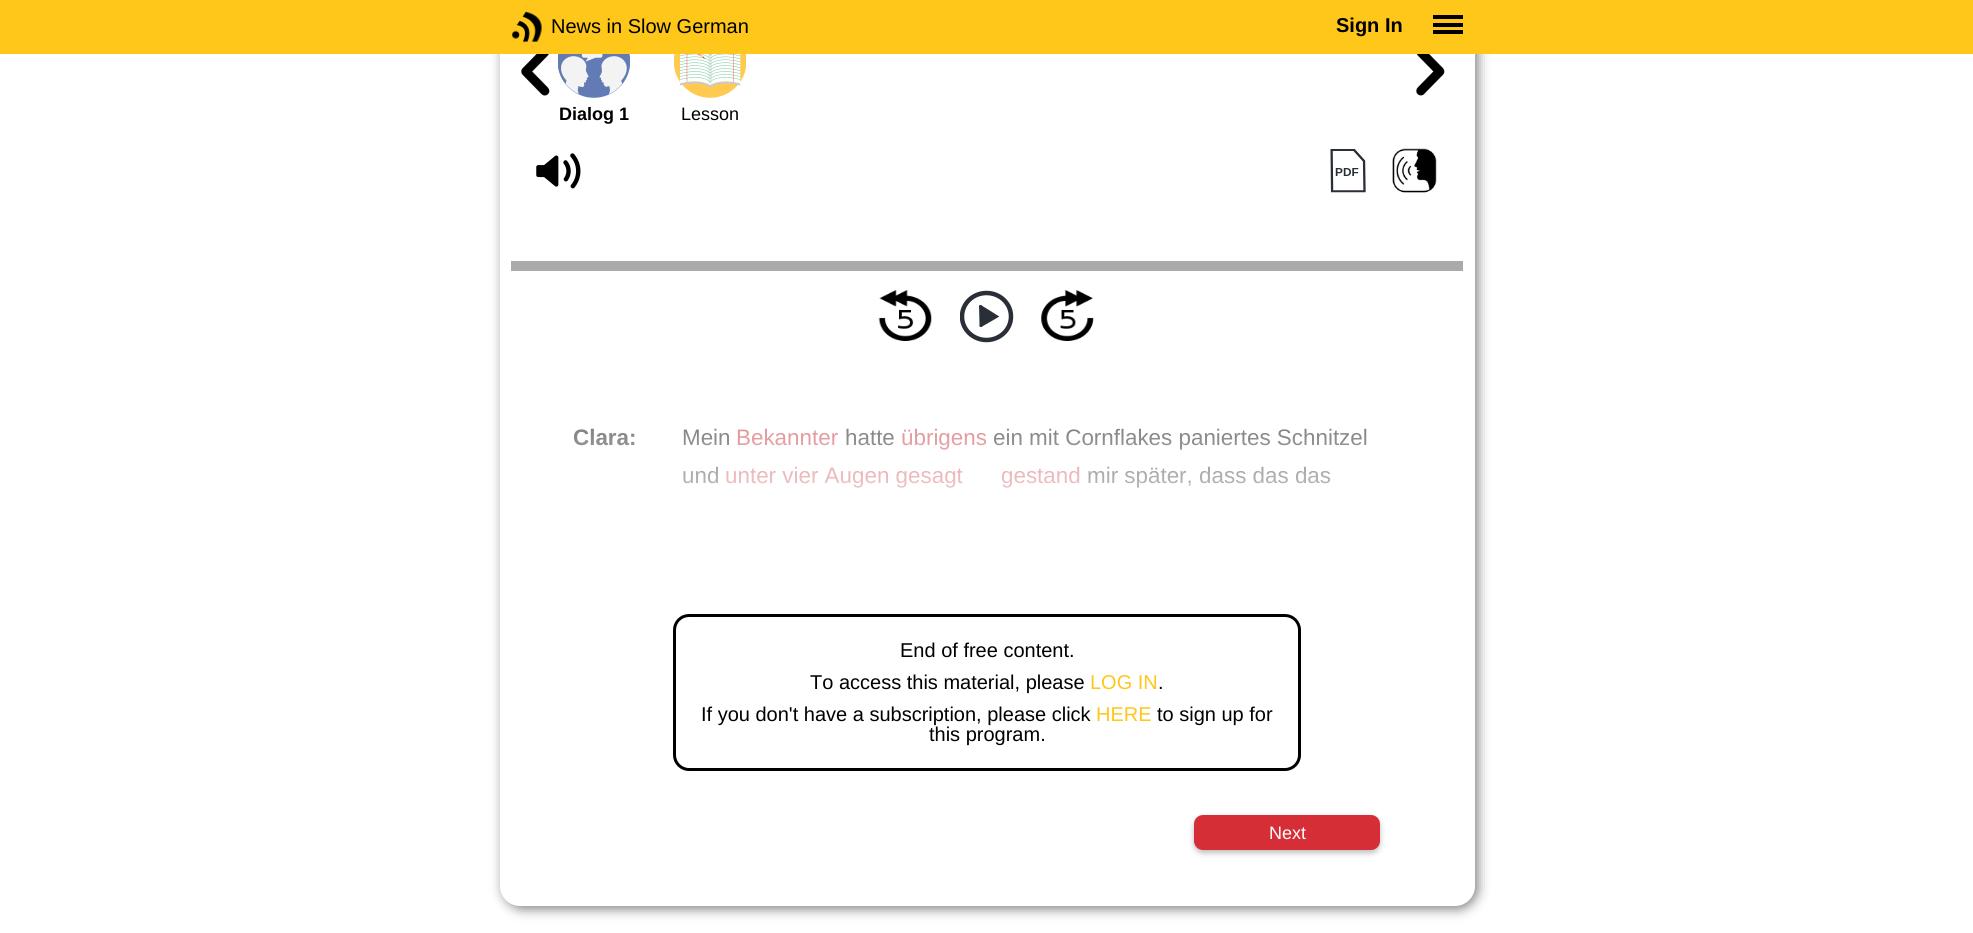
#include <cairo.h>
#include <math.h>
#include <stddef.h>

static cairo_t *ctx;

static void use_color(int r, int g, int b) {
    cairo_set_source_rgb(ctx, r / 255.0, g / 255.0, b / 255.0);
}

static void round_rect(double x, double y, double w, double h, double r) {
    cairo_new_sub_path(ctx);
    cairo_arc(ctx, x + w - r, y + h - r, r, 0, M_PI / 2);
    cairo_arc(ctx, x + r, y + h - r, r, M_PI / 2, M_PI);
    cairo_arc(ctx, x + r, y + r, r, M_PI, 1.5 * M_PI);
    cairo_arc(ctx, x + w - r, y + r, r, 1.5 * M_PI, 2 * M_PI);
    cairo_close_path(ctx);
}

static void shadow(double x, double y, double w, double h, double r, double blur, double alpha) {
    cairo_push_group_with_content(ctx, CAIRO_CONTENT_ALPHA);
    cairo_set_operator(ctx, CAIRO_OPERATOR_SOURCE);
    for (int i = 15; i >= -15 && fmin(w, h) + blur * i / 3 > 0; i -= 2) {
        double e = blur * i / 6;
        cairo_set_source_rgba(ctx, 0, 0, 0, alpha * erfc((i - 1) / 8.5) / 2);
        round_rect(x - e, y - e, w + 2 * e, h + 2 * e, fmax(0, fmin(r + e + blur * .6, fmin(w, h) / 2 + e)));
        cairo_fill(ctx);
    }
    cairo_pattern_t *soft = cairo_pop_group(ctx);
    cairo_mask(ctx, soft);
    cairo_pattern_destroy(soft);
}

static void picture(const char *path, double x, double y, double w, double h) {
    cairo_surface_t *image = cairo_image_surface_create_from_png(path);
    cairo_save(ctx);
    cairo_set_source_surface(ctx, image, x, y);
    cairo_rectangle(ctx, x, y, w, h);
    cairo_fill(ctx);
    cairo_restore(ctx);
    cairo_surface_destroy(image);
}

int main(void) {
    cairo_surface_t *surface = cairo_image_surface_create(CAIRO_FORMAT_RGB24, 1973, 933);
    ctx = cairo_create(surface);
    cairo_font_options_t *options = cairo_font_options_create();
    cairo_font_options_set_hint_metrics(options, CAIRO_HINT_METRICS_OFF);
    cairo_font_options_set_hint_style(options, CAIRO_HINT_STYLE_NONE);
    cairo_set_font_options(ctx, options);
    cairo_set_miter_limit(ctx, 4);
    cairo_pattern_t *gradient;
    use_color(255, 255, 255);
    cairo_paint(ctx);
    use_color(128, 128, 128);
    shadow(503, -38, 975, 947, 20, 6, 1);
    use_color(255, 255, 255);
    round_rect(500, -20, 975, 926, 20);
    cairo_fill(ctx);
    use_color(255, 199, 26);
    cairo_rectangle(ctx, 0, 0, 1973, 54);
    cairo_fill(ctx);
    picture("img1.png", 512, 11, 30, 32);
    cairo_select_font_face(ctx, "Liberation Sans", CAIRO_FONT_SLANT_NORMAL, CAIRO_FONT_WEIGHT_NORMAL);
    cairo_set_font_size(ctx, 20);
    use_color(0, 0, 0);
    cairo_move_to(ctx, 551, 33);
    cairo_show_text(ctx, "News in Slow German");
    cairo_select_font_face(ctx, "Liberation Sans", CAIRO_FONT_SLANT_NORMAL, CAIRO_FONT_WEIGHT_BOLD);
    cairo_move_to(ctx, 1336, 32);
    cairo_show_text(ctx, "Sign In");
    cairo_rectangle(ctx, 1433, 15, 30, 4);
    cairo_fill(ctx);
    cairo_rectangle(ctx, 1433, 23, 30, 4);
    cairo_fill(ctx);
    cairo_rectangle(ctx, 1433, 30, 30, 4);
    cairo_fill(ctx);
    picture("img2.png", 521, 54, 29, 42);
    picture("img3.png", 1416, 54, 29, 42);
    picture("img4.png", 558, 54, 72, 44);
    cairo_set_font_size(ctx, 18);
    cairo_move_to(ctx, 559, 120);
    cairo_show_text(ctx, "Dialog 1");
    picture("img5.png", 674, 54, 72, 44);
    cairo_select_font_face(ctx, "Liberation Sans", CAIRO_FONT_SLANT_NORMAL, CAIRO_FONT_WEIGHT_NORMAL);
    cairo_move_to(ctx, 681, 120);
    cairo_show_text(ctx, "Lesson");
    picture("img6.png", 536, 153, 45, 36);
    picture("img7.png", 1330, 149, 36, 44);
    picture("img8.png", 1392, 148, 45, 45);
    use_color(170, 170, 170);
    cairo_rectangle(ctx, 511, 261, 952, 10);
    cairo_fill(ctx);
    picture("img9.png", 878, 290, 54, 51);
    cairo_save(ctx);
    cairo_rectangle(ctx, 960, 290, 54, 53);
    cairo_clip(ctx);
    cairo_new_path(ctx);
    cairo_move_to(ctx, 986.5, 293);
    cairo_curve_to(ctx, 1000, 293, 1011, 303.5, 1011, 316.5);
    cairo_curve_to(ctx, 1011, 329.5, 1000, 340, 986.5, 340);
    cairo_curve_to(ctx, 973, 340, 962, 329.5, 962, 316.5);
    cairo_curve_to(ctx, 962, 303.5, 973, 293, 986.5, 293);
    cairo_close_path(ctx);
    use_color(41, 46, 55);
    cairo_set_line_width(ctx, 4.5);
    cairo_stroke(ctx);
    cairo_restore(ctx);
    cairo_new_path(ctx);
    cairo_move_to(ctx, 980.5, 306.5);
    cairo_line_to(ctx, 981, 325.5);
    use_color(41, 46, 55);
    cairo_set_line_width(ctx, 2.9);
    cairo_set_line_cap(ctx, CAIRO_LINE_CAP_ROUND);
    cairo_stroke(ctx);
    cairo_new_path(ctx);
    cairo_move_to(ctx, 981, 325.5);
    cairo_line_to(ctx, 996.5, 316.5);
    cairo_line_to(ctx, 980.5, 306.5);
    cairo_fill_preserve(ctx);
    cairo_stroke(ctx);
    picture("img10.png", 1041, 290, 53, 51);
    cairo_select_font_face(ctx, "Liberation Sans", CAIRO_FONT_SLANT_NORMAL, CAIRO_FONT_WEIGHT_BOLD);
    cairo_set_font_size(ctx, 22.4);
    use_color(0, 0, 0);
    cairo_move_to(ctx, 573, 445);
    cairo_show_text(ctx, "Clara:");
    cairo_select_font_face(ctx, "Liberation Sans", CAIRO_FONT_SLANT_NORMAL, CAIRO_FONT_WEIGHT_NORMAL);
    cairo_move_to(ctx, 682, 445);
    cairo_show_text(ctx, "Mein");
    use_color(195, 39, 47);
    cairo_move_to(ctx, 736, 445);
    cairo_show_text(ctx, "Bekannter");
    use_color(0, 0, 0);
    cairo_move_to(ctx, 845, 445);
    cairo_show_text(ctx, "hatte");
    use_color(195, 39, 47);
    cairo_move_to(ctx, 901, 445);
    cairo_show_text(ctx, "übrigens");
    use_color(0, 0, 0);
    cairo_move_to(ctx, 993, 445);
    cairo_show_text(ctx, "ein mit Cornflakes paniertes Schnitzel");
    cairo_move_to(ctx, 682, 483);
    cairo_show_text(ctx, "und");
    use_color(195, 39, 47);
    cairo_move_to(ctx, 725, 483);
    cairo_show_text(ctx, "unter vier Augen gesagt");
    cairo_move_to(ctx, 1001, 483);
    cairo_show_text(ctx, "gestand");
    use_color(0, 0, 0);
    cairo_move_to(ctx, 1087, 483);
    cairo_show_text(ctx, "mir später, dass das das");
    gradient = cairo_pattern_create_linear(987, 409, 987, 565);
    cairo_pattern_add_color_stop_rgba(gradient, 0, 1, 1, 1, 0);
    cairo_pattern_add_color_stop_rgba(gradient, 0.1, 1, 1, 1, 0.5);
    cairo_pattern_add_color_stop_rgba(gradient, 1, 1, 1, 1, 1);
    cairo_set_source(ctx, gradient);
    cairo_pattern_destroy(gradient);
    cairo_rectangle(ctx, 573, 428, 794, 60);
    cairo_fill(ctx);
    round_rect(674.5, 615.5, 625, 154, 14.5);
    use_color(0, 0, 0);
    cairo_set_line_width(ctx, 3);
    cairo_set_line_cap(ctx, CAIRO_LINE_CAP_BUTT);
    cairo_stroke(ctx);
    cairo_set_font_size(ctx, 20);
    cairo_move_to(ctx, 900, 657);
    cairo_show_text(ctx, "End of free content.");
    cairo_move_to(ctx, 810, 689);
    cairo_show_text(ctx, "To access this material, please");
    use_color(255, 199, 26);
    cairo_move_to(ctx, 1090, 689);
    cairo_show_text(ctx, "LOG IN");
    use_color(0, 0, 0);
    cairo_move_to(ctx, 1158, 689);
    cairo_show_text(ctx, ".");
    cairo_move_to(ctx, 701, 721);
    cairo_show_text(ctx, "If you don't have a subscription, please click");
    use_color(255, 199, 26);
    cairo_move_to(ctx, 1096, 721);
    cairo_show_text(ctx, "HERE");
    use_color(0, 0, 0);
    cairo_move_to(ctx, 1157, 721);
    cairo_show_text(ctx, "to sign up for");
    cairo_move_to(ctx, 929, 741);
    cairo_show_text(ctx, "this program.");
    use_color(0, 0, 0);
    shadow(1194, 818, 186, 35, 9, 3, 0.26);
    use_color(213, 46, 55);
    round_rect(1194, 815, 186, 35, 9);
    cairo_fill(ctx);
    cairo_set_font_size(ctx, 18);
    use_color(255, 255, 255);
    cairo_move_to(ctx, 1269, 839);
    cairo_show_text(ctx, "Next");
    cairo_surface_write_to_png(surface, "result.png");
    cairo_font_options_destroy(options);
    cairo_destroy(ctx);
    cairo_surface_destroy(surface);
    return 0;
}
